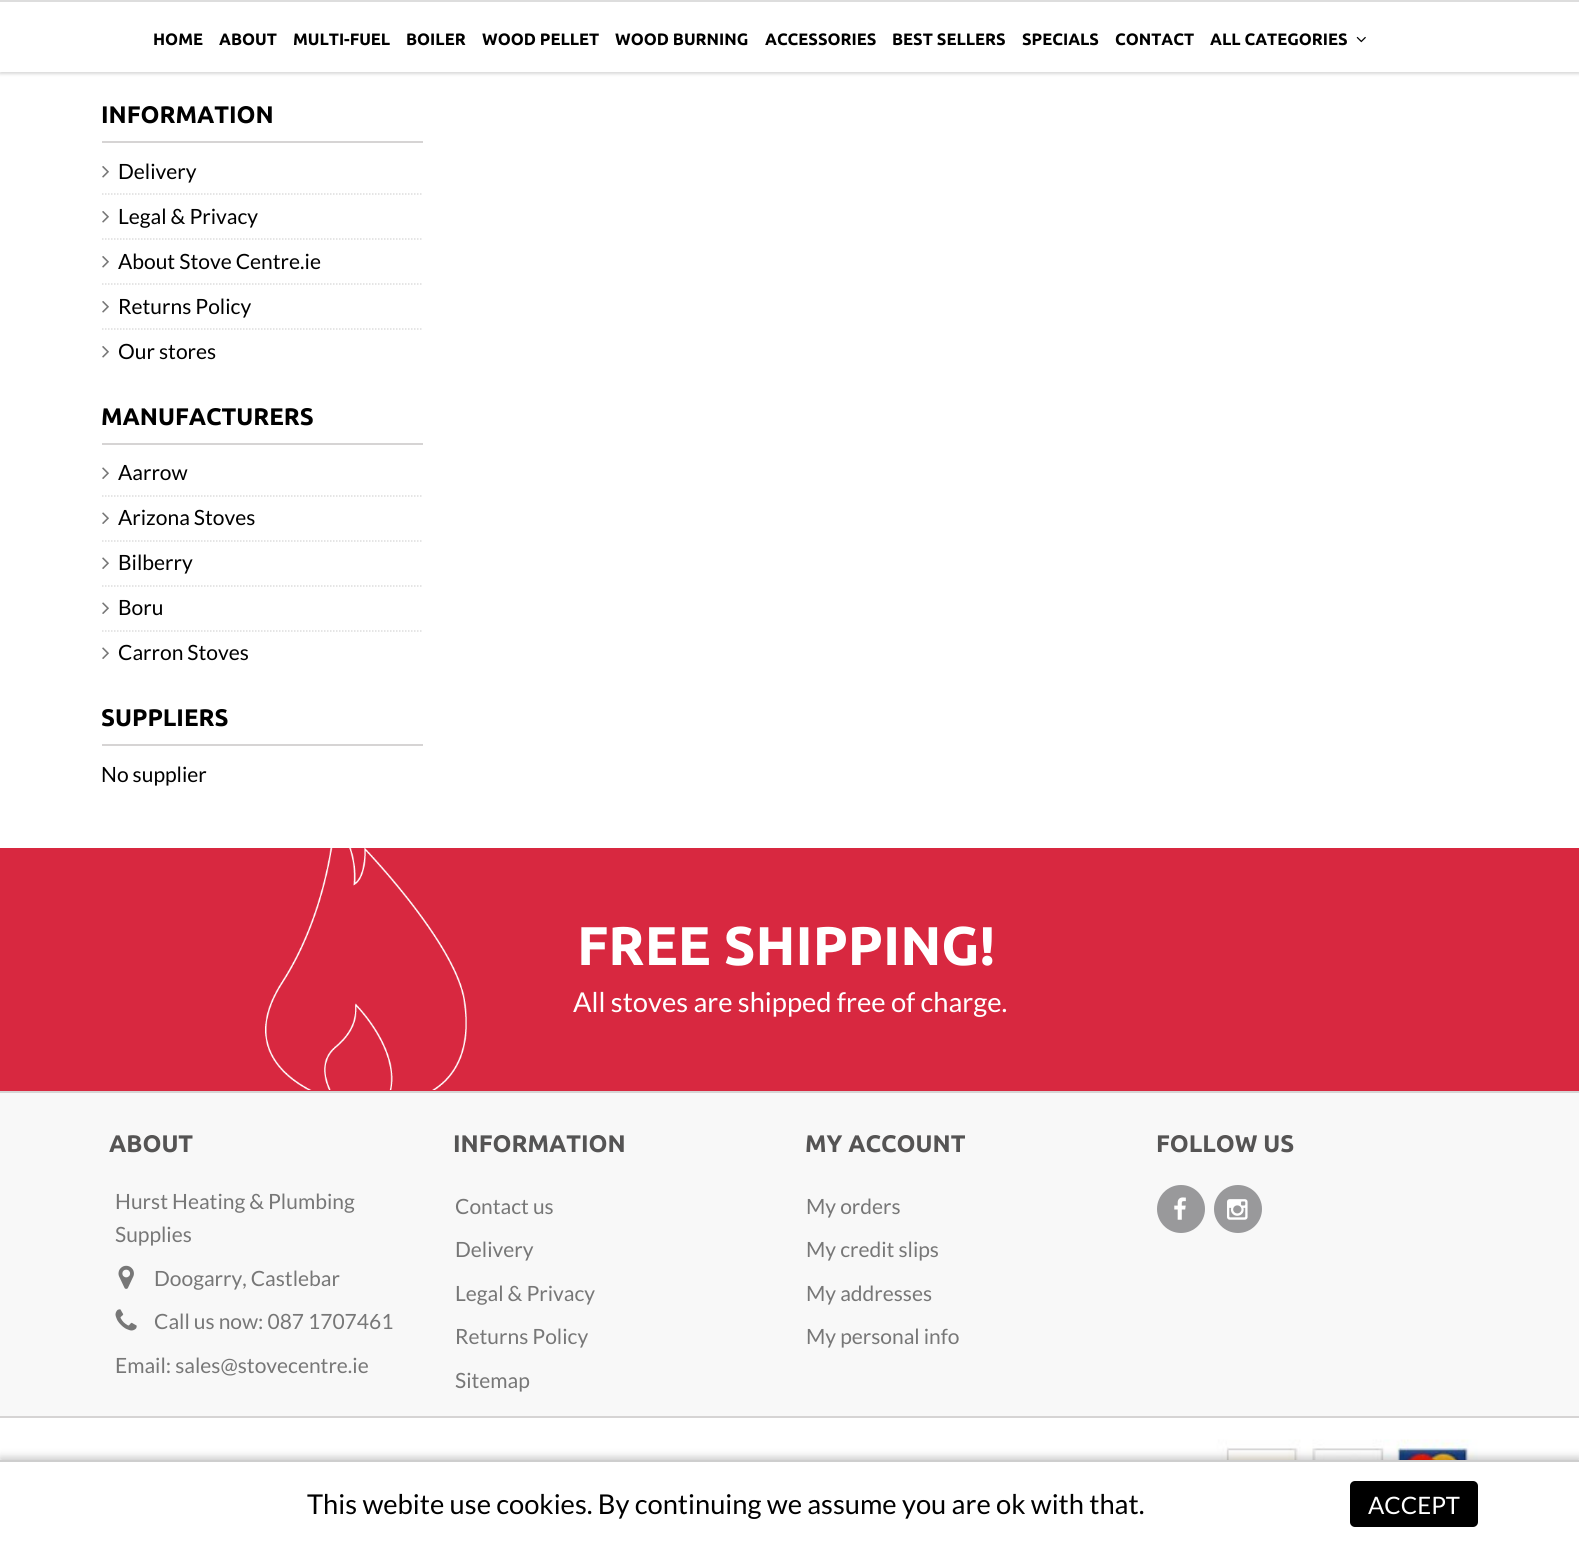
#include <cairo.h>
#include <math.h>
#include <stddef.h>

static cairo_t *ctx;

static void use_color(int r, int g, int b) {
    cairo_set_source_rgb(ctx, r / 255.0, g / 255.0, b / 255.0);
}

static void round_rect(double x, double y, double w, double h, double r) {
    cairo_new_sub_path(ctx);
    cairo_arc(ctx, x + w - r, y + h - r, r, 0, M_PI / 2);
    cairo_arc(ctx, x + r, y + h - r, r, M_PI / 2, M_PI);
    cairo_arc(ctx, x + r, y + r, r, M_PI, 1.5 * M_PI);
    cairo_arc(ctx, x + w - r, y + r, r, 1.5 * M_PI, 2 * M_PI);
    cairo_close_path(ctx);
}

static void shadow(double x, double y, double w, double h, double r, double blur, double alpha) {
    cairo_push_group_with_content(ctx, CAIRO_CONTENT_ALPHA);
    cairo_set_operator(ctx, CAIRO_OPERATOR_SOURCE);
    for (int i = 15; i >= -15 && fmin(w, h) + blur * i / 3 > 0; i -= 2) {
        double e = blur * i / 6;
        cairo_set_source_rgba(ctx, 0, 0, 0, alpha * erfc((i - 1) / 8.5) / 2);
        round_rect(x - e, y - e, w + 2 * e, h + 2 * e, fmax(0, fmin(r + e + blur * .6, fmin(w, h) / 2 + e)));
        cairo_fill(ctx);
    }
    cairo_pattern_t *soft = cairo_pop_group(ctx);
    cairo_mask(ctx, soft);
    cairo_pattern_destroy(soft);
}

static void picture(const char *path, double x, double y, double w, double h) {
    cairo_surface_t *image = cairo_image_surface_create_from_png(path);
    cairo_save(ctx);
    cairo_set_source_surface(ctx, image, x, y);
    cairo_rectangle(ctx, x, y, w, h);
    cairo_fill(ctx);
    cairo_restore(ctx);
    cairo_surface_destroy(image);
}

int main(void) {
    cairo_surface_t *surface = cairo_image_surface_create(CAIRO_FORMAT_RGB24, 1579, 1555);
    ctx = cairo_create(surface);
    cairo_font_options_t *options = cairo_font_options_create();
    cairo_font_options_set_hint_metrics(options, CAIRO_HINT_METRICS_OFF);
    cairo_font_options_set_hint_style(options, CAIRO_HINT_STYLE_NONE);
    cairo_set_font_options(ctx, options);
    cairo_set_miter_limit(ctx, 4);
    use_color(255, 255, 255);
    cairo_paint(ctx);
    use_color(0, 0, 0);
    shadow(0, 2, 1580, 72, 0, 1.5, 0.15);
    use_color(255, 255, 255);
    cairo_rectangle(ctx, 0, 2, 1579, 70);
    cairo_fill(ctx);
    use_color(221, 221, 221);
    cairo_rectangle(ctx, 0, 0, 1579, 2);
    cairo_fill(ctx);
    cairo_select_font_face(ctx, "Ubuntu", CAIRO_FONT_SLANT_NORMAL, CAIRO_FONT_WEIGHT_BOLD);
    cairo_set_font_size(ctx, 16.5);
    use_color(0, 0, 0);
    cairo_move_to(ctx, 153, 45);
    cairo_show_text(ctx, "HOME");
    cairo_move_to(ctx, 219, 45);
    cairo_show_text(ctx, "ABOUT");
    cairo_move_to(ctx, 293, 45);
    cairo_show_text(ctx, "MULTI-FUEL");
    cairo_move_to(ctx, 406, 45);
    cairo_show_text(ctx, "BOILER");
    cairo_move_to(ctx, 482, 45);
    cairo_show_text(ctx, "WOOD PELLET");
    cairo_move_to(ctx, 615, 45);
    cairo_show_text(ctx, "WOOD BURNING");
    cairo_move_to(ctx, 765, 45);
    cairo_show_text(ctx, "ACCESSORIES");
    cairo_move_to(ctx, 892, 45);
    cairo_show_text(ctx, "BEST SELLERS");
    cairo_move_to(ctx, 1022, 45);
    cairo_show_text(ctx, "SPECIALS");
    cairo_move_to(ctx, 1115, 45);
    cairo_show_text(ctx, "CONTACT");
    cairo_move_to(ctx, 1210, 45);
    cairo_show_text(ctx, "ALL CATEGORIES");
    picture("img1.png", 1356, 36, 10, 7);
    use_color(214, 212, 212);
    cairo_rectangle(ctx, 102, 141, 321, 2);
    cairo_fill(ctx);
    cairo_set_font_size(ctx, 24);
    use_color(0, 0, 0);
    cairo_move_to(ctx, 101, 123);
    cairo_show_text(ctx, "INFORMATION");
    picture("img2.png", 102, 166, 7, 12);
    cairo_select_font_face(ctx, "Lato", CAIRO_FONT_SLANT_NORMAL, CAIRO_FONT_WEIGHT_NORMAL);
    cairo_set_font_size(ctx, 21);
    cairo_move_to(ctx, 118, 179);
    cairo_show_text(ctx, "Delivery");
    cairo_new_path(ctx);
    cairo_move_to(ctx, 102, 194);
    cairo_line_to(ctx, 423, 194);
    use_color(221, 221, 221);
    cairo_set_line_width(ctx, 1.5);
    cairo_set_dash(ctx, (double[]){1.5, 1.5}, 2, 0);
    cairo_stroke(ctx);
    picture("img2.png", 102, 211, 7, 12);
    use_color(0, 0, 0);
    cairo_move_to(ctx, 118, 224);
    cairo_show_text(ctx, "Legal & Privacy");
    cairo_new_path(ctx);
    cairo_move_to(ctx, 102, 239);
    cairo_line_to(ctx, 423, 239);
    use_color(221, 221, 221);
    cairo_stroke(ctx);
    picture("img2.png", 102, 256, 7, 12);
    use_color(0, 0, 0);
    cairo_move_to(ctx, 118, 269);
    cairo_show_text(ctx, "About Stove Centre.ie");
    cairo_new_path(ctx);
    cairo_move_to(ctx, 102, 284);
    cairo_line_to(ctx, 423, 284);
    use_color(221, 221, 221);
    cairo_stroke(ctx);
    picture("img2.png", 102, 301, 7, 12);
    use_color(0, 0, 0);
    cairo_move_to(ctx, 118, 314);
    cairo_show_text(ctx, "Returns Policy");
    cairo_new_path(ctx);
    cairo_move_to(ctx, 102, 329);
    cairo_line_to(ctx, 423, 329);
    use_color(221, 221, 221);
    cairo_stroke(ctx);
    picture("img2.png", 102, 346, 7, 12);
    use_color(0, 0, 0);
    cairo_move_to(ctx, 118, 359);
    cairo_show_text(ctx, "Our stores");
    use_color(214, 212, 212);
    cairo_rectangle(ctx, 102, 443, 321, 2);
    cairo_fill(ctx);
    cairo_select_font_face(ctx, "Ubuntu", CAIRO_FONT_SLANT_NORMAL, CAIRO_FONT_WEIGHT_BOLD);
    cairo_set_font_size(ctx, 24);
    use_color(0, 0, 0);
    cairo_move_to(ctx, 101, 425);
    cairo_show_text(ctx, "MANUFACTURERS");
    picture("img3.png", 102, 467, 7, 12);
    cairo_select_font_face(ctx, "Lato", CAIRO_FONT_SLANT_NORMAL, CAIRO_FONT_WEIGHT_NORMAL);
    cairo_set_font_size(ctx, 21);
    cairo_move_to(ctx, 118, 480);
    cairo_show_text(ctx, "Aarrow");
    cairo_new_path(ctx);
    cairo_move_to(ctx, 102, 496);
    cairo_line_to(ctx, 423, 496);
    use_color(221, 221, 221);
    cairo_stroke(ctx);
    picture("img3.png", 102, 512, 7, 12);
    use_color(0, 0, 0);
    cairo_move_to(ctx, 118, 525);
    cairo_show_text(ctx, "Arizona Stoves");
    cairo_new_path(ctx);
    cairo_move_to(ctx, 102, 541);
    cairo_line_to(ctx, 423, 541);
    use_color(221, 221, 221);
    cairo_stroke(ctx);
    picture("img3.png", 102, 557, 7, 12);
    use_color(0, 0, 0);
    cairo_move_to(ctx, 118, 570);
    cairo_show_text(ctx, "Bilberry");
    cairo_new_path(ctx);
    cairo_move_to(ctx, 102, 586);
    cairo_line_to(ctx, 423, 586);
    use_color(221, 221, 221);
    cairo_stroke(ctx);
    picture("img3.png", 102, 602, 7, 12);
    use_color(0, 0, 0);
    cairo_move_to(ctx, 118, 615);
    cairo_show_text(ctx, "Boru");
    cairo_new_path(ctx);
    cairo_move_to(ctx, 102, 631);
    cairo_line_to(ctx, 423, 631);
    use_color(221, 221, 221);
    cairo_stroke(ctx);
    picture("img3.png", 102, 647, 7, 12);
    use_color(0, 0, 0);
    cairo_move_to(ctx, 118, 660);
    cairo_show_text(ctx, "Carron Stoves");
    use_color(214, 212, 212);
    cairo_rectangle(ctx, 102, 744, 321, 2);
    cairo_fill(ctx);
    cairo_select_font_face(ctx, "Ubuntu", CAIRO_FONT_SLANT_NORMAL, CAIRO_FONT_WEIGHT_BOLD);
    cairo_set_font_size(ctx, 24);
    use_color(0, 0, 0);
    cairo_move_to(ctx, 101, 726);
    cairo_show_text(ctx, "SUPPLIERS");
    cairo_select_font_face(ctx, "Lato", CAIRO_FONT_SLANT_NORMAL, CAIRO_FONT_WEIGHT_NORMAL);
    cairo_set_font_size(ctx, 21);
    cairo_move_to(ctx, 101, 782);
    cairo_show_text(ctx, "No supplier");
    use_color(216, 40, 64);
    cairo_rectangle(ctx, 0, 848, 1579, 243);
    cairo_fill(ctx);
    picture("img4.png", 265, 848, 202, 242);
    cairo_select_font_face(ctx, "Ubuntu", CAIRO_FONT_SLANT_NORMAL, CAIRO_FONT_WEIGHT_BOLD);
    cairo_set_font_size(ctx, 54.5);
    use_color(255, 255, 255);
    cairo_move_to(ctx, 577, 965);
    cairo_show_text(ctx, "FREE SHIPPING!");
    cairo_select_font_face(ctx, "Lato", CAIRO_FONT_SLANT_NORMAL, CAIRO_FONT_WEIGHT_NORMAL);
    cairo_set_font_size(ctx, 27.3);
    cairo_move_to(ctx, 573, 1012);
    cairo_show_text(ctx, "All stoves are shipped free of charge.");
    use_color(248, 248, 248);
    cairo_rectangle(ctx, 0, 1093, 1579, 323);
    cairo_fill(ctx);
    use_color(214, 212, 212);
    cairo_rectangle(ctx, 0, 1091, 1579, 2);
    cairo_fill(ctx);
    cairo_rectangle(ctx, 0, 1416, 1579, 2);
    cairo_fill(ctx);
    cairo_select_font_face(ctx, "Ubuntu", CAIRO_FONT_SLANT_NORMAL, CAIRO_FONT_WEIGHT_BOLD);
    cairo_set_font_size(ctx, 24);
    use_color(85, 84, 84);
    cairo_move_to(ctx, 109, 1152);
    cairo_show_text(ctx, "ABOUT");
    cairo_select_font_face(ctx, "Lato", CAIRO_FONT_SLANT_NORMAL, CAIRO_FONT_WEIGHT_NORMAL);
    cairo_set_font_size(ctx, 21);
    use_color(119, 119, 119);
    cairo_move_to(ctx, 115, 1209);
    cairo_show_text(ctx, "Hurst Heating & Plumbing");
    cairo_move_to(ctx, 115, 1242);
    cairo_show_text(ctx, "Supplies");
    picture("img5.png", 118, 1265, 16, 24);
    cairo_move_to(ctx, 154, 1286);
    cairo_show_text(ctx, "Doogarry, Castlebar");
    picture("img6.png", 115, 1309, 22, 22);
    cairo_move_to(ctx, 154, 1329);
    cairo_show_text(ctx, "Call us now: 087 1707461");
    cairo_move_to(ctx, 115, 1373);
    cairo_show_text(ctx, "Email: sales@stovecentre.ie");
    cairo_select_font_face(ctx, "Ubuntu", CAIRO_FONT_SLANT_NORMAL, CAIRO_FONT_WEIGHT_BOLD);
    cairo_set_font_size(ctx, 24);
    use_color(85, 84, 84);
    cairo_move_to(ctx, 453, 1152);
    cairo_show_text(ctx, "INFORMATION");
    cairo_select_font_face(ctx, "Lato", CAIRO_FONT_SLANT_NORMAL, CAIRO_FONT_WEIGHT_NORMAL);
    cairo_set_font_size(ctx, 21);
    use_color(119, 119, 119);
    cairo_move_to(ctx, 455, 1214);
    cairo_show_text(ctx, "Contact us");
    cairo_move_to(ctx, 455, 1257);
    cairo_show_text(ctx, "Delivery");
    cairo_move_to(ctx, 455, 1301);
    cairo_show_text(ctx, "Legal & Privacy");
    cairo_move_to(ctx, 455, 1344);
    cairo_show_text(ctx, "Returns Policy");
    cairo_move_to(ctx, 455, 1388);
    cairo_show_text(ctx, "Sitemap");
    cairo_select_font_face(ctx, "Ubuntu", CAIRO_FONT_SLANT_NORMAL, CAIRO_FONT_WEIGHT_BOLD);
    cairo_set_font_size(ctx, 24);
    use_color(85, 84, 84);
    cairo_move_to(ctx, 805, 1152);
    cairo_show_text(ctx, "MY ACCOUNT");
    cairo_select_font_face(ctx, "Lato", CAIRO_FONT_SLANT_NORMAL, CAIRO_FONT_WEIGHT_NORMAL);
    cairo_set_font_size(ctx, 21);
    use_color(119, 119, 119);
    cairo_move_to(ctx, 806, 1214);
    cairo_show_text(ctx, "My orders");
    cairo_move_to(ctx, 806, 1257);
    cairo_show_text(ctx, "My credit slips");
    cairo_move_to(ctx, 806, 1301);
    cairo_show_text(ctx, "My addresses");
    cairo_move_to(ctx, 806, 1344);
    cairo_show_text(ctx, "My personal info");
    cairo_select_font_face(ctx, "Ubuntu", CAIRO_FONT_SLANT_NORMAL, CAIRO_FONT_WEIGHT_BOLD);
    cairo_set_font_size(ctx, 24);
    use_color(85, 84, 84);
    cairo_move_to(ctx, 1156, 1152);
    cairo_show_text(ctx, "FOLLOW US");
    use_color(153, 153, 155);
    cairo_new_path(ctx);
    cairo_arc(ctx, 1181, 1209, 24, 0, 2 * M_PI);
    cairo_fill(ctx);
    picture("img7.png", 1174, 1197, 12, 23);
    cairo_arc(ctx, 1238, 1209, 24, 0, 2 * M_PI);
    cairo_fill(ctx);
    picture("img8.png", 1227, 1199, 21, 21);
    picture("img9.png", 1216, 1439, 262, 21);
    use_color(0, 0, 0);
    shadow(0, 1457, 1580, 96, 0, 4, 0.2);
    use_color(255, 255, 255);
    cairo_rectangle(ctx, 0, 1462, 1579, 93);
    cairo_fill(ctx);
    use_color(206, 206, 206);
    cairo_rectangle(ctx, 0, 1460, 1579, 2);
    cairo_fill(ctx);
    cairo_select_font_face(ctx, "Lato", CAIRO_FONT_SLANT_NORMAL, CAIRO_FONT_WEIGHT_NORMAL);
    cairo_set_font_size(ctx, 27.3);
    use_color(0, 0, 0);
    cairo_move_to(ctx, 307, 1514);
    cairo_show_text(ctx, "This webite use cookies. By continuing we assume you are ok with that.");
    round_rect(1350, 1481, 128, 46, 5);
    cairo_fill(ctx);
    cairo_set_font_size(ctx, 24);
    use_color(255, 255, 255);
    cairo_move_to(ctx, 1368, 1514);
    cairo_show_text(ctx, "ACCEPT");
    cairo_surface_write_to_png(surface, "result.png");
    cairo_font_options_destroy(options);
    cairo_destroy(ctx);
    cairo_surface_destroy(surface);
    return 0;
}
